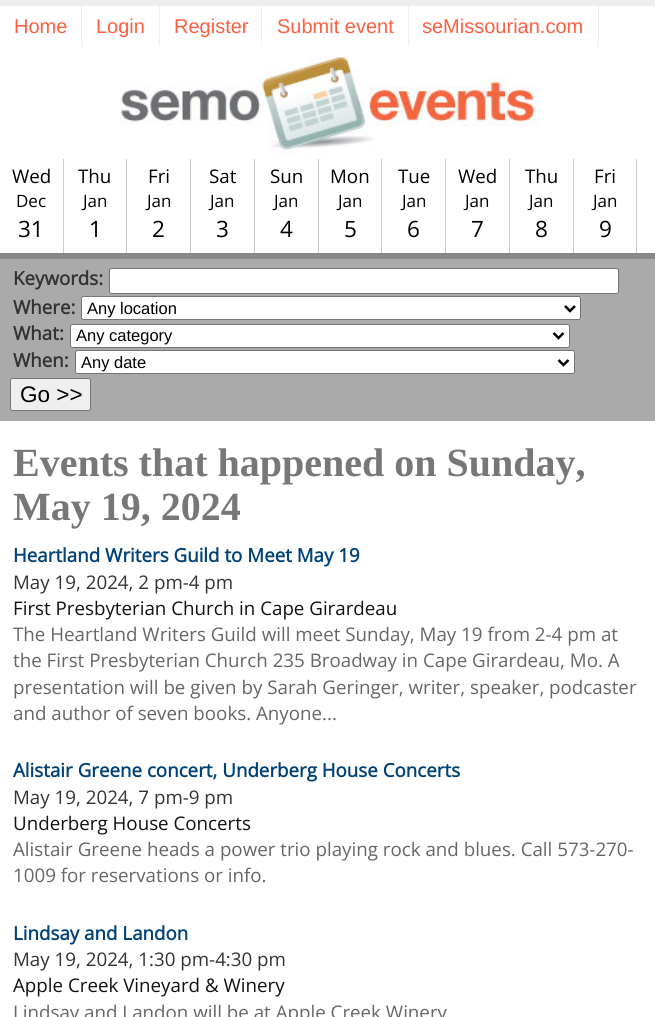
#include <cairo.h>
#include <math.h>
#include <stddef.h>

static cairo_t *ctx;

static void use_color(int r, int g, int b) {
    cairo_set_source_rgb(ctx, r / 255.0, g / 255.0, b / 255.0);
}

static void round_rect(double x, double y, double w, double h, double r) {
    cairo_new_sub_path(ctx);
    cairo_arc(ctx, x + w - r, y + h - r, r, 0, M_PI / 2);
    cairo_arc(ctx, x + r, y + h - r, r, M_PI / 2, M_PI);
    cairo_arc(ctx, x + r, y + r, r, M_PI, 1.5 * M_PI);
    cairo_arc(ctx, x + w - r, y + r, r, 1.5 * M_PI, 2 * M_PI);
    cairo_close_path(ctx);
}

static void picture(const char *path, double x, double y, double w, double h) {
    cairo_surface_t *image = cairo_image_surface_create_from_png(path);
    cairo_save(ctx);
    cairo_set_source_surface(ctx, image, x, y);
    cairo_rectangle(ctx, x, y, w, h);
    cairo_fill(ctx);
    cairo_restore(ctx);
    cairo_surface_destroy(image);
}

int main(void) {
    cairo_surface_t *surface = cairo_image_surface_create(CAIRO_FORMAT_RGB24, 655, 1017);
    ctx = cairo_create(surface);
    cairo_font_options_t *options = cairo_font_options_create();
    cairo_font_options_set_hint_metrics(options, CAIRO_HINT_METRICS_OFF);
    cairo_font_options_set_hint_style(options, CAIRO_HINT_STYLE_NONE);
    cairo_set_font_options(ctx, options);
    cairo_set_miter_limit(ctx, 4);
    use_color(238, 238, 238);
    cairo_paint(ctx);
    use_color(255, 255, 255);
    cairo_rectangle(ctx, 0, 6, 655, 1011);
    cairo_fill(ctx);
    use_color(238, 238, 238);
    cairo_rectangle(ctx, 81, 6, 1, 40);
    cairo_fill(ctx);
    cairo_select_font_face(ctx, "Liberation Sans", CAIRO_FONT_SLANT_NORMAL, CAIRO_FONT_WEIGHT_NORMAL);
    cairo_set_font_size(ctx, 20);
    use_color(254, 93, 64);
    cairo_move_to(ctx, 14, 33);
    cairo_show_text(ctx, "Home");
    use_color(238, 238, 238);
    cairo_rectangle(ctx, 159, 6, 1, 40);
    cairo_fill(ctx);
    use_color(254, 93, 64);
    cairo_move_to(ctx, 96, 33);
    cairo_show_text(ctx, "Login");
    use_color(238, 238, 238);
    cairo_rectangle(ctx, 261, 6, 1, 40);
    cairo_fill(ctx);
    use_color(254, 93, 64);
    cairo_move_to(ctx, 174, 33);
    cairo_show_text(ctx, "Register");
    use_color(238, 238, 238);
    cairo_rectangle(ctx, 408, 6, 1, 40);
    cairo_fill(ctx);
    use_color(254, 93, 64);
    cairo_move_to(ctx, 277, 33);
    cairo_show_text(ctx, "Submit event");
    use_color(238, 238, 238);
    cairo_rectangle(ctx, 598, 6, 1, 40);
    cairo_fill(ctx);
    use_color(254, 93, 64);
    cairo_move_to(ctx, 422, 33);
    cairo_show_text(ctx, "seMissourian.com");
    picture("img1.png", 119, 56, 420, 100);
    use_color(136, 136, 136);
    cairo_rectangle(ctx, 0, 253, 655, 6);
    cairo_fill(ctx);
    use_color(204, 204, 204);
    cairo_rectangle(ctx, 63, 159, 1, 94);
    cairo_fill(ctx);
    cairo_select_font_face(ctx, "Open Sans", CAIRO_FONT_SLANT_NORMAL, CAIRO_FONT_WEIGHT_NORMAL);
    cairo_set_font_size(ctx, 18.75);
    use_color(0, 0, 0);
    cairo_move_to(ctx, 12, 183);
    cairo_show_text(ctx, "Wed");
    cairo_set_font_size(ctx, 17);
    cairo_move_to(ctx, 16, 207);
    cairo_show_text(ctx, "Dec");
    cairo_set_font_size(ctx, 22.5);
    cairo_move_to(ctx, 18, 237);
    cairo_show_text(ctx, "31");
    use_color(204, 204, 204);
    cairo_rectangle(ctx, 126, 159, 1, 94);
    cairo_fill(ctx);
    cairo_set_font_size(ctx, 18.75);
    use_color(0, 0, 0);
    cairo_move_to(ctx, 78, 183);
    cairo_show_text(ctx, "Thu");
    cairo_set_font_size(ctx, 17);
    cairo_move_to(ctx, 83, 207);
    cairo_show_text(ctx, "Jan");
    cairo_set_font_size(ctx, 22.5);
    cairo_move_to(ctx, 89, 237);
    cairo_show_text(ctx, "1");
    use_color(204, 204, 204);
    cairo_rectangle(ctx, 190, 159, 1, 94);
    cairo_fill(ctx);
    cairo_set_font_size(ctx, 18.75);
    use_color(0, 0, 0);
    cairo_move_to(ctx, 148, 183);
    cairo_show_text(ctx, "Fri");
    cairo_set_font_size(ctx, 17);
    cairo_move_to(ctx, 147, 207);
    cairo_show_text(ctx, "Jan");
    cairo_set_font_size(ctx, 22.5);
    cairo_move_to(ctx, 152, 237);
    cairo_show_text(ctx, "2");
    use_color(204, 204, 204);
    cairo_rectangle(ctx, 254, 159, 1, 94);
    cairo_fill(ctx);
    cairo_set_font_size(ctx, 18.75);
    use_color(0, 0, 0);
    cairo_move_to(ctx, 209, 183);
    cairo_show_text(ctx, "Sat");
    cairo_set_font_size(ctx, 17);
    cairo_move_to(ctx, 210, 207);
    cairo_show_text(ctx, "Jan");
    cairo_set_font_size(ctx, 22.5);
    cairo_move_to(ctx, 216, 237);
    cairo_show_text(ctx, "3");
    use_color(204, 204, 204);
    cairo_rectangle(ctx, 318, 159, 1, 94);
    cairo_fill(ctx);
    cairo_set_font_size(ctx, 18.75);
    use_color(0, 0, 0);
    cairo_move_to(ctx, 270, 183);
    cairo_show_text(ctx, "Sun");
    cairo_set_font_size(ctx, 17);
    cairo_move_to(ctx, 274, 207);
    cairo_show_text(ctx, "Jan");
    cairo_set_font_size(ctx, 22.5);
    cairo_move_to(ctx, 280, 237);
    cairo_show_text(ctx, "4");
    use_color(204, 204, 204);
    cairo_rectangle(ctx, 381, 159, 1, 94);
    cairo_fill(ctx);
    cairo_set_font_size(ctx, 18.75);
    use_color(0, 0, 0);
    cairo_move_to(ctx, 330, 183);
    cairo_show_text(ctx, "Mon");
    cairo_set_font_size(ctx, 17);
    cairo_move_to(ctx, 338, 207);
    cairo_show_text(ctx, "Jan");
    cairo_set_font_size(ctx, 22.5);
    cairo_move_to(ctx, 344, 237);
    cairo_show_text(ctx, "5");
    use_color(204, 204, 204);
    cairo_rectangle(ctx, 445, 159, 1, 94);
    cairo_fill(ctx);
    cairo_set_font_size(ctx, 18.75);
    use_color(0, 0, 0);
    cairo_move_to(ctx, 398, 183);
    cairo_show_text(ctx, "Tue");
    cairo_set_font_size(ctx, 17);
    cairo_move_to(ctx, 402, 207);
    cairo_show_text(ctx, "Jan");
    cairo_set_font_size(ctx, 22.5);
    cairo_move_to(ctx, 407, 237);
    cairo_show_text(ctx, "6");
    use_color(204, 204, 204);
    cairo_rectangle(ctx, 509, 159, 1, 94);
    cairo_fill(ctx);
    cairo_set_font_size(ctx, 18.75);
    use_color(0, 0, 0);
    cairo_move_to(ctx, 458, 183);
    cairo_show_text(ctx, "Wed");
    cairo_set_font_size(ctx, 17);
    cairo_move_to(ctx, 465, 207);
    cairo_show_text(ctx, "Jan");
    cairo_set_font_size(ctx, 22.5);
    cairo_move_to(ctx, 471, 237);
    cairo_show_text(ctx, "7");
    use_color(204, 204, 204);
    cairo_rectangle(ctx, 573, 159, 1, 94);
    cairo_fill(ctx);
    cairo_set_font_size(ctx, 18.75);
    use_color(0, 0, 0);
    cairo_move_to(ctx, 525, 183);
    cairo_show_text(ctx, "Thu");
    cairo_set_font_size(ctx, 17);
    cairo_move_to(ctx, 529, 207);
    cairo_show_text(ctx, "Jan");
    cairo_set_font_size(ctx, 22.5);
    cairo_move_to(ctx, 535, 237);
    cairo_show_text(ctx, "8");
    use_color(204, 204, 204);
    cairo_rectangle(ctx, 636, 159, 1, 94);
    cairo_fill(ctx);
    cairo_set_font_size(ctx, 18.75);
    use_color(0, 0, 0);
    cairo_move_to(ctx, 594, 183);
    cairo_show_text(ctx, "Fri");
    cairo_set_font_size(ctx, 17);
    cairo_move_to(ctx, 593, 207);
    cairo_show_text(ctx, "Jan");
    cairo_set_font_size(ctx, 22.5);
    cairo_move_to(ctx, 599, 237);
    cairo_show_text(ctx, "9");
    use_color(170, 170, 170);
    cairo_rectangle(ctx, 0, 259, 655, 162);
    cairo_fill(ctx);
    cairo_select_font_face(ctx, "Open Sans", CAIRO_FONT_SLANT_NORMAL, CAIRO_FONT_WEIGHT_BOLD);
    cairo_set_font_size(ctx, 18.75);
    use_color(51, 51, 51);
    cairo_move_to(ctx, 13, 285);
    cairo_show_text(ctx, "Keywords:");
    use_color(255, 255, 255);
    round_rect(109.5, 268.5, 509, 25, 2);
    cairo_fill_preserve(ctx);
    use_color(118, 118, 118);
    cairo_set_line_width(ctx, 1);
    cairo_stroke(ctx);
    use_color(51, 51, 51);
    cairo_move_to(ctx, 13, 314);
    cairo_show_text(ctx, "Where:");
    use_color(255, 255, 255);
    round_rect(81.5, 296.5, 499, 23, 2);
    cairo_fill_preserve(ctx);
    use_color(118, 118, 118);
    cairo_stroke(ctx);
    cairo_new_path(ctx);
    cairo_move_to(ctx, 565, 306);
    cairo_line_to(ctx, 570, 311);
    cairo_line_to(ctx, 575, 306);
    use_color(0, 0, 0);
    cairo_set_line_width(ctx, 2.5);
    cairo_stroke(ctx);
    cairo_select_font_face(ctx, "Liberation Sans", CAIRO_FONT_SLANT_NORMAL, CAIRO_FONT_WEIGHT_NORMAL);
    cairo_set_font_size(ctx, 16.5);
    cairo_move_to(ctx, 87, 314);
    cairo_show_text(ctx, "Any location");
    cairo_select_font_face(ctx, "Open Sans", CAIRO_FONT_SLANT_NORMAL, CAIRO_FONT_WEIGHT_BOLD);
    cairo_set_font_size(ctx, 18.75);
    use_color(51, 51, 51);
    cairo_move_to(ctx, 13, 340);
    cairo_show_text(ctx, "What:");
    use_color(255, 255, 255);
    round_rect(70.5, 324.5, 499, 23, 2);
    cairo_fill_preserve(ctx);
    use_color(118, 118, 118);
    cairo_set_line_width(ctx, 1);
    cairo_stroke(ctx);
    cairo_new_path(ctx);
    cairo_move_to(ctx, 553.5, 333);
    cairo_line_to(ctx, 558.5, 338);
    cairo_line_to(ctx, 563.5, 333);
    use_color(0, 0, 0);
    cairo_set_line_width(ctx, 2.5);
    cairo_stroke(ctx);
    cairo_select_font_face(ctx, "Liberation Sans", CAIRO_FONT_SLANT_NORMAL, CAIRO_FONT_WEIGHT_NORMAL);
    cairo_set_font_size(ctx, 16.5);
    cairo_move_to(ctx, 76, 341);
    cairo_show_text(ctx, "Any category");
    cairo_select_font_face(ctx, "Open Sans", CAIRO_FONT_SLANT_NORMAL, CAIRO_FONT_WEIGHT_BOLD);
    cairo_set_font_size(ctx, 18.75);
    use_color(51, 51, 51);
    cairo_move_to(ctx, 13, 367);
    cairo_show_text(ctx, "When:");
    use_color(255, 255, 255);
    round_rect(75.5, 350.5, 499, 23, 2);
    cairo_fill_preserve(ctx);
    use_color(118, 118, 118);
    cairo_set_line_width(ctx, 1);
    cairo_stroke(ctx);
    cairo_new_path(ctx);
    cairo_move_to(ctx, 558.5, 360);
    cairo_line_to(ctx, 563.5, 365);
    cairo_line_to(ctx, 568.5, 360);
    use_color(0, 0, 0);
    cairo_set_line_width(ctx, 2.5);
    cairo_stroke(ctx);
    cairo_select_font_face(ctx, "Liberation Sans", CAIRO_FONT_SLANT_NORMAL, CAIRO_FONT_WEIGHT_NORMAL);
    cairo_set_font_size(ctx, 16.5);
    cairo_move_to(ctx, 81, 368);
    cairo_show_text(ctx, "Any date");
    use_color(239, 239, 239);
    round_rect(10.5, 378.5, 80, 32, 2);
    cairo_fill_preserve(ctx);
    use_color(118, 118, 118);
    cairo_set_line_width(ctx, 1);
    cairo_stroke(ctx);
    cairo_set_font_size(ctx, 22.5);
    use_color(0, 0, 0);
    cairo_move_to(ctx, 20, 402);
    cairo_show_text(ctx, "Go >>");
    cairo_select_font_face(ctx, "Liberation Serif", CAIRO_FONT_SLANT_NORMAL, CAIRO_FONT_WEIGHT_BOLD);
    cairo_set_font_size(ctx, 40);
    use_color(119, 119, 119);
    cairo_move_to(ctx, 13, 476);
    cairo_show_text(ctx, "Events that happened on Sunday,");
    cairo_move_to(ctx, 13, 520);
    cairo_show_text(ctx, "May 19, 2024");
    cairo_select_font_face(ctx, "Open Sans", CAIRO_FONT_SLANT_NORMAL, CAIRO_FONT_WEIGHT_BOLD);
    cairo_set_font_size(ctx, 18.75);
    use_color(0, 66, 118);
    cairo_move_to(ctx, 13, 562);
    cairo_show_text(ctx, "Heartland Writers Guild to Meet May 19");
    cairo_select_font_face(ctx, "Open Sans", CAIRO_FONT_SLANT_NORMAL, CAIRO_FONT_WEIGHT_NORMAL);
    use_color(51, 51, 51);
    cairo_move_to(ctx, 13, 589);
    cairo_show_text(ctx, "May 19, 2024, 2 pm-4 pm");
    use_color(17, 17, 17);
    cairo_move_to(ctx, 13, 615);
    cairo_show_text(ctx, "First Presbyterian Church in Cape Girardeau");
    use_color(102, 102, 102);
    cairo_move_to(ctx, 13, 641);
    cairo_show_text(ctx, "The Heartland Writers Guild will meet Sunday, May 19 from 2-4 pm at");
    cairo_move_to(ctx, 13, 667);
    cairo_show_text(ctx, "the First Presbyterian Church 235 Broadway in Cape Girardeau, Mo. A");
    cairo_move_to(ctx, 13, 694);
    cairo_show_text(ctx, "presentation will be given by Sarah Geringer, writer, speaker, podcaster");
    cairo_move_to(ctx, 13, 720);
    cairo_show_text(ctx, "and author of seven books. Anyone...");
    cairo_select_font_face(ctx, "Open Sans", CAIRO_FONT_SLANT_NORMAL, CAIRO_FONT_WEIGHT_BOLD);
    use_color(0, 66, 118);
    cairo_move_to(ctx, 13, 777);
    cairo_show_text(ctx, "Alistair Greene concert, Underberg House Concerts");
    cairo_select_font_face(ctx, "Open Sans", CAIRO_FONT_SLANT_NORMAL, CAIRO_FONT_WEIGHT_NORMAL);
    use_color(51, 51, 51);
    cairo_move_to(ctx, 13, 804);
    cairo_show_text(ctx, "May 19, 2024, 7 pm-9 pm");
    use_color(17, 17, 17);
    cairo_move_to(ctx, 13, 830);
    cairo_show_text(ctx, "Underberg House Concerts");
    use_color(102, 102, 102);
    cairo_move_to(ctx, 13, 856);
    cairo_show_text(ctx, "Alistair Greene heads a power trio playing rock and blues. Call 573-270-");
    cairo_move_to(ctx, 13, 882);
    cairo_show_text(ctx, "1009 for reservations or info.");
    cairo_select_font_face(ctx, "Open Sans", CAIRO_FONT_SLANT_NORMAL, CAIRO_FONT_WEIGHT_BOLD);
    use_color(0, 66, 118);
    cairo_move_to(ctx, 13, 940);
    cairo_show_text(ctx, "Lindsay and Landon");
    cairo_select_font_face(ctx, "Open Sans", CAIRO_FONT_SLANT_NORMAL, CAIRO_FONT_WEIGHT_NORMAL);
    use_color(51, 51, 51);
    cairo_move_to(ctx, 13, 966);
    cairo_show_text(ctx, "May 19, 2024, 1:30 pm-4:30 pm");
    use_color(17, 17, 17);
    cairo_move_to(ctx, 13, 992);
    cairo_show_text(ctx, "Apple Creek Vineyard & Winery");
    use_color(102, 102, 102);
    cairo_move_to(ctx, 13, 1019);
    cairo_show_text(ctx, "Lindsay and Landon will be at Apple Creek Winery");
    cairo_surface_write_to_png(surface, "result.png");
    cairo_font_options_destroy(options);
    cairo_destroy(ctx);
    cairo_surface_destroy(surface);
    return 0;
}
